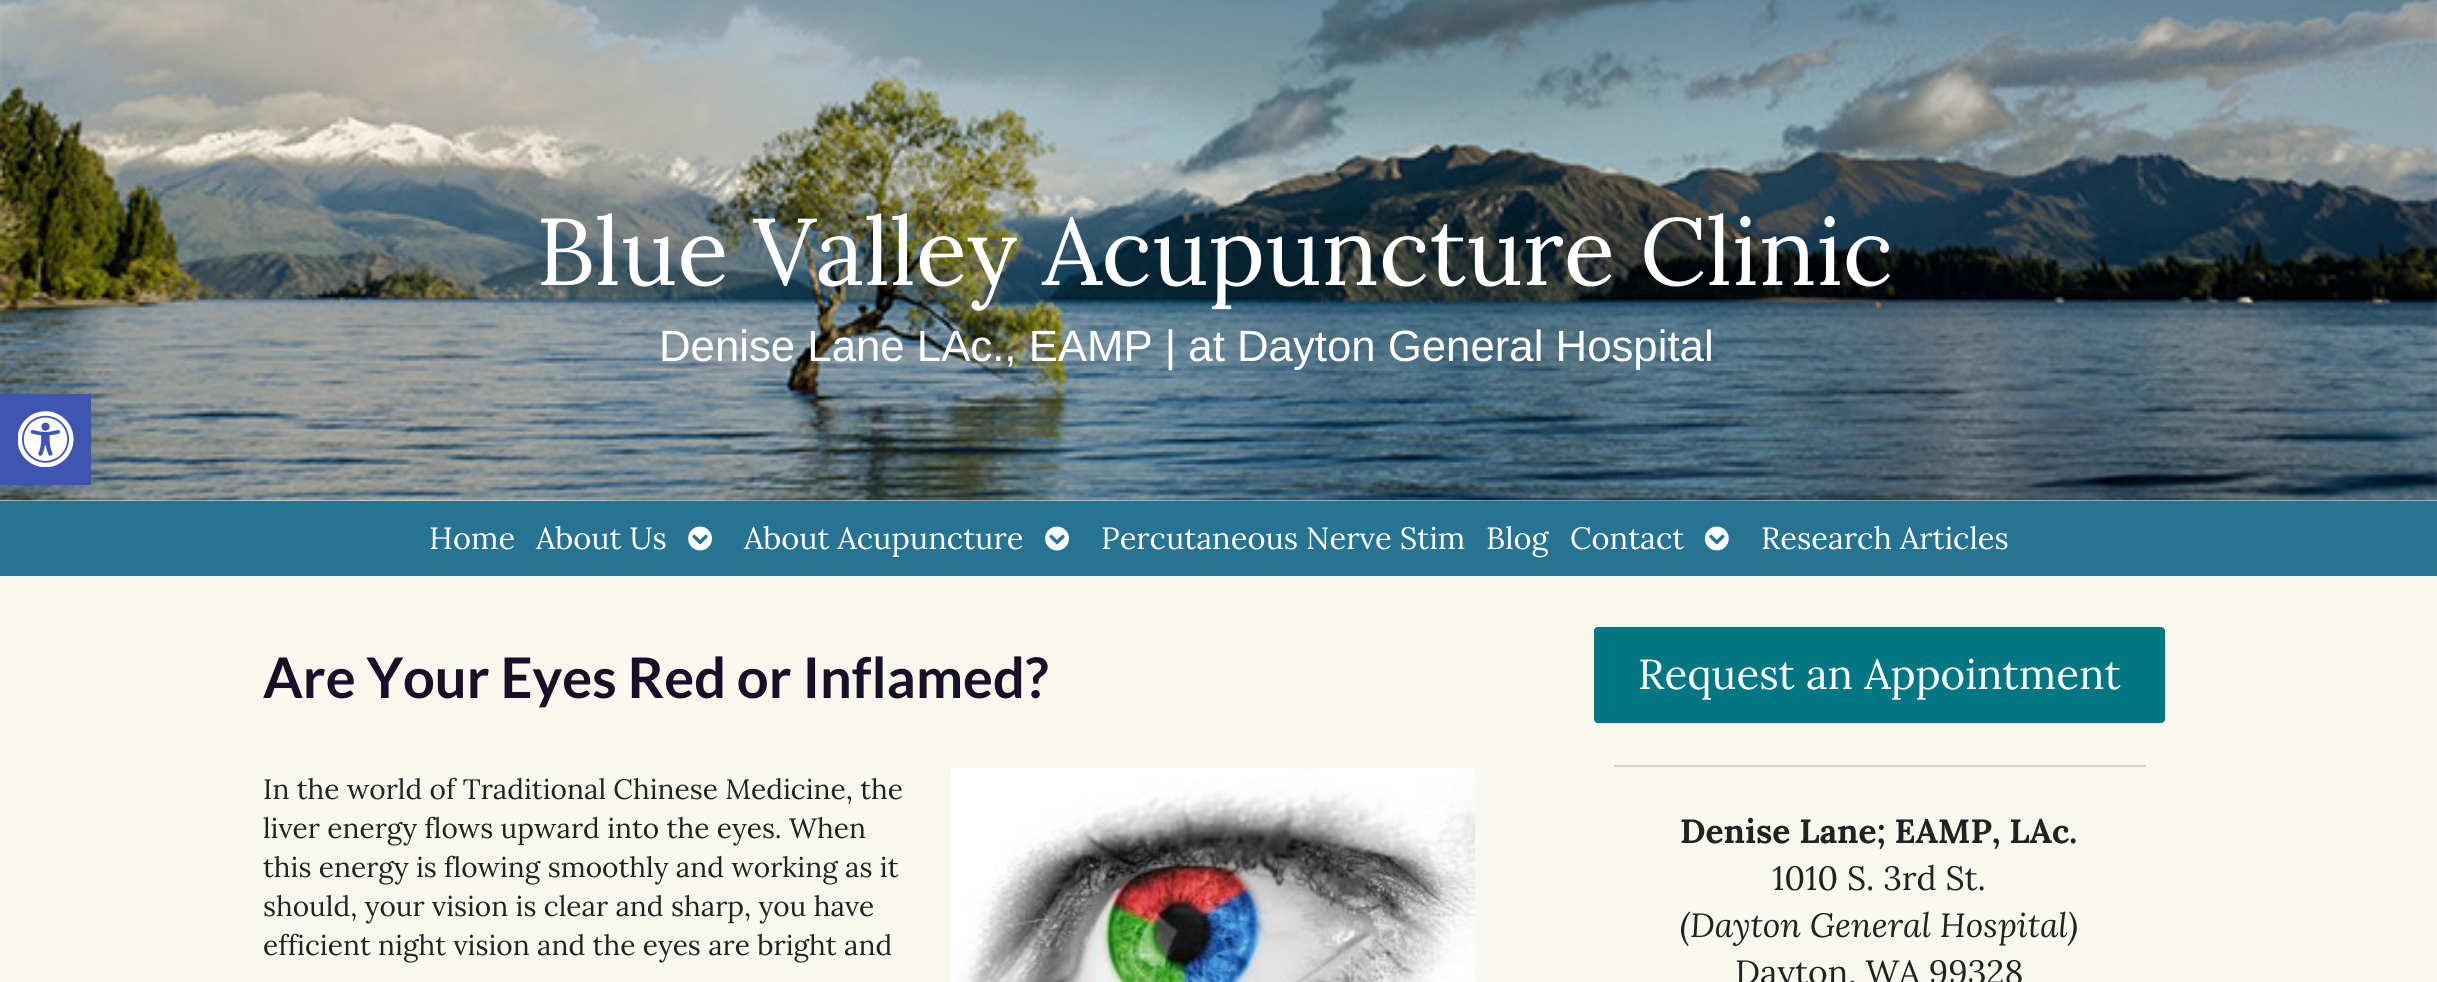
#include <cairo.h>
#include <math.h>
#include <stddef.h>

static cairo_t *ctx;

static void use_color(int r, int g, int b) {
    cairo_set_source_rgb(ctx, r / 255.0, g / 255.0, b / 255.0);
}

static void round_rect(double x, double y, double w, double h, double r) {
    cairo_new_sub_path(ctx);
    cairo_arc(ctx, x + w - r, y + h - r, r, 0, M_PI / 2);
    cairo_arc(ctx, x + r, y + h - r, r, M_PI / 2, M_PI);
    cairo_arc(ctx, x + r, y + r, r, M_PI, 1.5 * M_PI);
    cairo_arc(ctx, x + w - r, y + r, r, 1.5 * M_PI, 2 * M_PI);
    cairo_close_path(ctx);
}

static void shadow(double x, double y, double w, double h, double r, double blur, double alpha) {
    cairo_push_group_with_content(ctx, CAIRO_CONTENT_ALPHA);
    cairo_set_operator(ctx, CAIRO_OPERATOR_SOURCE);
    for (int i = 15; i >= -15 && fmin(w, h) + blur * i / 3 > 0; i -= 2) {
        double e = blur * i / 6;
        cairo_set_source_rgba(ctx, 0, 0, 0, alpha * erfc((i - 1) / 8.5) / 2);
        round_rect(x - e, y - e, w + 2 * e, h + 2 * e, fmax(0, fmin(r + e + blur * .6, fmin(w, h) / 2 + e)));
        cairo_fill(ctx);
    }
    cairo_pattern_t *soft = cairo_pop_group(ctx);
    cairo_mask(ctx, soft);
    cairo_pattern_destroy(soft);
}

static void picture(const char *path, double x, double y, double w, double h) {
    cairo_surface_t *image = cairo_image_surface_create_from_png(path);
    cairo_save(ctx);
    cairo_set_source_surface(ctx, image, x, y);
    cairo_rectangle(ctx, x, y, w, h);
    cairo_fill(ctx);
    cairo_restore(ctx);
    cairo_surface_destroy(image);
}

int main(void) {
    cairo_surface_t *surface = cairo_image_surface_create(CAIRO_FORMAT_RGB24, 2437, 982);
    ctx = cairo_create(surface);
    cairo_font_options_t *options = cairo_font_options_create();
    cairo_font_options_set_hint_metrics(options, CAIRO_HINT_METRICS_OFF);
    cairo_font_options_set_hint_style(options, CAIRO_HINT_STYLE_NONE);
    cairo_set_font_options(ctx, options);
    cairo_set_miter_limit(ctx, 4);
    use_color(249, 248, 239);
    cairo_paint(ctx);
    picture("img2.png", 0, 0, 2437, 501);
    use_color(39, 115, 147);
    cairo_rectangle(ctx, 0, 501, 2437, 75);
    cairo_fill(ctx);
    use_color(0, 0, 0);
    shadow(0, 394, 91, 91, 0, 9, 0.1);
    use_color(64, 84, 178);
    cairo_rectangle(ctx, 0, 394, 91, 91);
    cairo_fill(ctx);
    picture("img1.png", 18, 411, 56, 56);
    cairo_select_font_face(ctx, "Lora", CAIRO_FONT_SLANT_NORMAL, CAIRO_FONT_WEIGHT_NORMAL);
    cairo_set_font_size(ctx, 94.75);
    use_color(255, 255, 255);
    cairo_move_to(ctx, 536, 285);
    cairo_show_text(ctx, "Blue Valley Acupuncture Clinic");
    cairo_select_font_face(ctx, "Liberation Sans", CAIRO_FONT_SLANT_NORMAL, CAIRO_FONT_WEIGHT_NORMAL);
    cairo_set_font_size(ctx, 43.75);
    cairo_move_to(ctx, 659, 361);
    cairo_show_text(ctx, "Denise Lane LAc., EAMP | at Dayton General Hospital");
    cairo_select_font_face(ctx, "Lora", CAIRO_FONT_SLANT_NORMAL, CAIRO_FONT_WEIGHT_NORMAL);
    cairo_set_font_size(ctx, 30.75);
    cairo_move_to(ctx, 429, 549);
    cairo_show_text(ctx, "Home");
    cairo_move_to(ctx, 536, 549);
    cairo_show_text(ctx, "About Us");
    picture("img3.png", 688, 526, 24, 25);
    cairo_move_to(ctx, 744, 549);
    cairo_show_text(ctx, "About Acupuncture");
    picture("img3.png", 1045, 526, 24, 25);
    cairo_move_to(ctx, 1101, 549);
    cairo_show_text(ctx, "Percutaneous Nerve Stim");
    cairo_move_to(ctx, 1486, 549);
    cairo_show_text(ctx, "Blog");
    cairo_move_to(ctx, 1570, 549);
    cairo_show_text(ctx, "Contact");
    picture("img4.png", 1704, 526, 25, 25);
    cairo_move_to(ctx, 1761, 549);
    cairo_show_text(ctx, "Research Articles");
    cairo_select_font_face(ctx, "Lato", CAIRO_FONT_SLANT_NORMAL, CAIRO_FONT_WEIGHT_BOLD);
    cairo_set_font_size(ctx, 56);
    use_color(22, 17, 40);
    cairo_move_to(ctx, 263, 698);
    cairo_show_text(ctx, "Are Your Eyes Red or Inflamed?");
    cairo_select_font_face(ctx, "Lora", CAIRO_FONT_SLANT_NORMAL, CAIRO_FONT_WEIGHT_NORMAL);
    cairo_set_font_size(ctx, 28);
    use_color(34, 34, 34);
    cairo_move_to(ctx, 263, 799);
    cairo_show_text(ctx, "In the world of Traditional Chinese Medicine, the");
    picture("img5.png", 950, 768, 526, 214);
    cairo_move_to(ctx, 263, 838);
    cairo_show_text(ctx, "liver energy flows upward into the eyes. When");
    cairo_move_to(ctx, 263, 877);
    cairo_show_text(ctx, "this energy is flowing smoothly and working as it");
    cairo_move_to(ctx, 263, 916);
    cairo_show_text(ctx, "should, your vision is clear and sharp, you have");
    cairo_move_to(ctx, 263, 955);
    cairo_show_text(ctx, "efficient night vision and the eyes are bright and");
    use_color(1, 119, 132);
    round_rect(1594, 627, 571, 96, 4);
    cairo_fill(ctx);
    cairo_set_font_size(ctx, 42);
    use_color(255, 255, 255);
    cairo_move_to(ctx, 1638, 689);
    cairo_show_text(ctx, "Request an Appointment");
    use_color(212, 211, 203);
    cairo_rectangle(ctx, 1614, 765, 532, 2);
    cairo_fill(ctx);
    cairo_select_font_face(ctx, "Lora", CAIRO_FONT_SLANT_NORMAL, CAIRO_FONT_WEIGHT_BOLD);
    cairo_set_font_size(ctx, 33.6);
    use_color(34, 34, 34);
    cairo_move_to(ctx, 1680, 843);
    cairo_show_text(ctx, "Denise Lane; EAMP, LAc.");
    cairo_select_font_face(ctx, "Lora", CAIRO_FONT_SLANT_NORMAL, CAIRO_FONT_WEIGHT_NORMAL);
    cairo_move_to(ctx, 1772, 890);
    cairo_show_text(ctx, "1010 S. 3rd St.");
    cairo_select_font_face(ctx, "Lora", CAIRO_FONT_SLANT_ITALIC, CAIRO_FONT_WEIGHT_NORMAL);
    cairo_move_to(ctx, 1680, 937);
    cairo_show_text(ctx, "(Dayton General Hospital)");
    cairo_select_font_face(ctx, "Lora", CAIRO_FONT_SLANT_NORMAL, CAIRO_FONT_WEIGHT_NORMAL);
    cairo_move_to(ctx, 1735, 984);
    cairo_show_text(ctx, "Dayton, WA 99328");
    cairo_surface_write_to_png(surface, "result.png");
    cairo_font_options_destroy(options);
    cairo_destroy(ctx);
    cairo_surface_destroy(surface);
    return 0;
}
